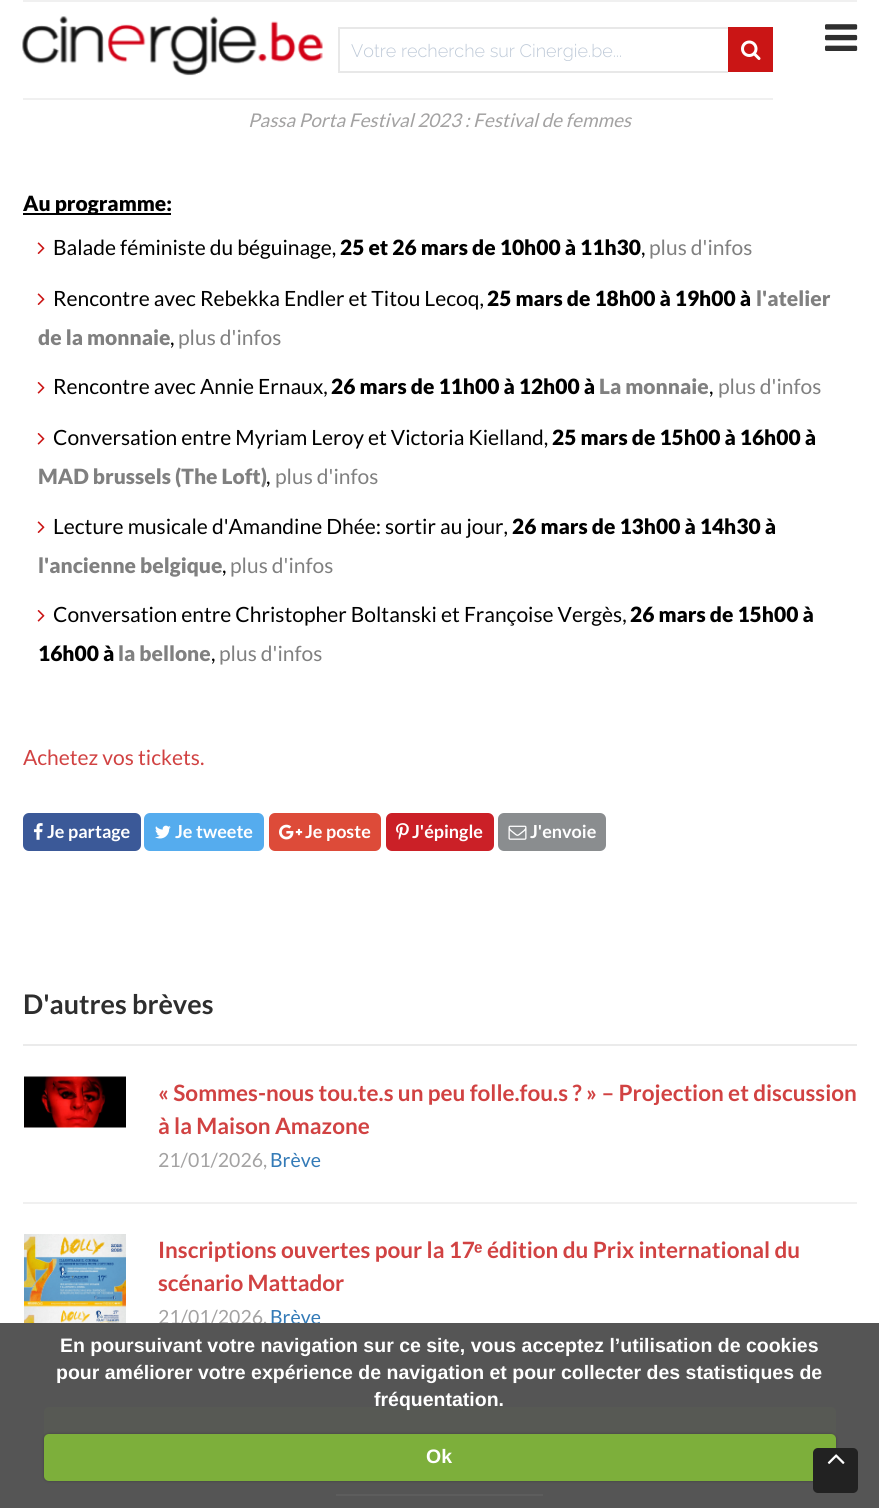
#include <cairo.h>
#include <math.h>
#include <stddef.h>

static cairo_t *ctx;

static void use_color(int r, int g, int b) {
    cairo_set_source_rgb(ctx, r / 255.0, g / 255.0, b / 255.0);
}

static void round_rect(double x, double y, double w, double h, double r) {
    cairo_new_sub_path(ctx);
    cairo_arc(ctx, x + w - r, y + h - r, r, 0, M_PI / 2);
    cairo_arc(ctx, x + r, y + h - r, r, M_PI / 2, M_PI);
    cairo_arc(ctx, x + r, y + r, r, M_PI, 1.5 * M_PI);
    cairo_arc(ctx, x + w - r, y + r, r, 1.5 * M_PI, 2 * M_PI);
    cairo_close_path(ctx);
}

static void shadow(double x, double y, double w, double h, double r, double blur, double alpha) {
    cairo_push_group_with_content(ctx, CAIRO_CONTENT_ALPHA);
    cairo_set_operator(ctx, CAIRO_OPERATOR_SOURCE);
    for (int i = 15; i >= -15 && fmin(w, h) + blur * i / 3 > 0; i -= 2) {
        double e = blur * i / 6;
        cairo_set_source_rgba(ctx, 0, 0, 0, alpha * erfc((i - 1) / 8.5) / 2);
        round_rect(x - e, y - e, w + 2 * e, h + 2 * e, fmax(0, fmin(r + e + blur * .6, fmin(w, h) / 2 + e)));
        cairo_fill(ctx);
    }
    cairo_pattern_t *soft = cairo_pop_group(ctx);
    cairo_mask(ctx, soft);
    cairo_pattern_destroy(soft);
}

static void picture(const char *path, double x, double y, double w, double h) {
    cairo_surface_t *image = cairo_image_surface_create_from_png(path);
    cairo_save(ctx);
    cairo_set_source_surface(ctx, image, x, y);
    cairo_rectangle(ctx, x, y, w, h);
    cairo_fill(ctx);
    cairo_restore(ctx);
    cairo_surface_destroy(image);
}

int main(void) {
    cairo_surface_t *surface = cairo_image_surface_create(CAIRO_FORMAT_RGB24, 879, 1508);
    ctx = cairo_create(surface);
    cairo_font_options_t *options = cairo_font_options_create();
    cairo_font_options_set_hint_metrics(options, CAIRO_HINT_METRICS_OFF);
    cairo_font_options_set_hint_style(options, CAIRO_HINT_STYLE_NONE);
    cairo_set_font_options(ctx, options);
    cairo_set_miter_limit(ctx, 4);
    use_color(255, 255, 255);
    cairo_paint(ctx);
    use_color(240, 240, 240);
    cairo_rectangle(ctx, 23, 0, 834, 2);
    cairo_fill(ctx);
    picture("img1.png", 825, 24, 33, 27);
    cairo_rectangle(ctx, 23, 98, 750, 2);
    cairo_fill(ctx);
    picture("img2.png", 22, 16, 301, 60);
    use_color(232, 232, 232);
    cairo_rectangle(ctx, 338, 27, 390, 2);
    cairo_fill(ctx);
    cairo_rectangle(ctx, 338, 71, 390, 2);
    cairo_fill(ctx);
    cairo_rectangle(ctx, 338, 27, 2, 45);
    cairo_fill(ctx);
    cairo_select_font_face(ctx, "Raleway Light", CAIRO_FONT_SLANT_NORMAL, CAIRO_FONT_WEIGHT_NORMAL);
    cairo_set_font_size(ctx, 18);
    use_color(191, 202, 216);
    cairo_move_to(ctx, 351, 57);
    cairo_show_text(ctx, "Votre recherche sur Cinergie.be...");
    use_color(202, 21, 21);
    cairo_rectangle(ctx, 728, 27, 45, 45);
    cairo_fill(ctx);
    picture("img3.png", 741, 40, 20, 20);
    cairo_select_font_face(ctx, "Lato", CAIRO_FONT_SLANT_ITALIC, CAIRO_FONT_WEIGHT_NORMAL);
    cairo_set_font_size(ctx, 18.9);
    use_color(163, 162, 162);
    cairo_move_to(ctx, 248, 127);
    cairo_show_text(ctx, "Passa Porta Festival 2023 : Festival de femmes");
    use_color(0, 0, 0);
    cairo_rectangle(ctx, 23, 213, 148, 2);
    cairo_fill(ctx);
    cairo_select_font_face(ctx, "Lato Black", CAIRO_FONT_SLANT_NORMAL, CAIRO_FONT_WEIGHT_NORMAL);
    cairo_set_font_size(ctx, 21);
    cairo_move_to(ctx, 23, 211);
    cairo_show_text(ctx, "Au programme:");
    picture("img4.png", 37, 242, 8, 12);
    cairo_select_font_face(ctx, "Lato", CAIRO_FONT_SLANT_NORMAL, CAIRO_FONT_WEIGHT_NORMAL);
    cairo_move_to(ctx, 53, 255);
    cairo_show_text(ctx, "Balade féministe du béguinage,");
    cairo_select_font_face(ctx, "Lato Black", CAIRO_FONT_SLANT_NORMAL, CAIRO_FONT_WEIGHT_NORMAL);
    cairo_move_to(ctx, 340, 255);
    cairo_show_text(ctx, "25 et 26 mars de 10h00 à 11h30");
    cairo_select_font_face(ctx, "Lato", CAIRO_FONT_SLANT_NORMAL, CAIRO_FONT_WEIGHT_NORMAL);
    use_color(128, 128, 128);
    cairo_move_to(ctx, 649, 255);
    cairo_show_text(ctx, "plus d'infos");
    use_color(0, 0, 0);
    cairo_move_to(ctx, 641, 255);
    cairo_show_text(ctx, ",");
    picture("img4.png", 37, 293, 8, 12);
    cairo_move_to(ctx, 53, 306);
    cairo_show_text(ctx, "Rencontre avec Rebekka Endler et Titou Lecoq,");
    cairo_select_font_face(ctx, "Lato Black", CAIRO_FONT_SLANT_NORMAL, CAIRO_FONT_WEIGHT_NORMAL);
    cairo_move_to(ctx, 487, 306);
    cairo_show_text(ctx, "25 mars de 18h00 à 19h00 à");
    use_color(128, 128, 128);
    cairo_move_to(ctx, 756, 306);
    cairo_show_text(ctx, "l'atelier");
    cairo_move_to(ctx, 38, 345);
    cairo_show_text(ctx, "de la monnaie");
    cairo_select_font_face(ctx, "Lato", CAIRO_FONT_SLANT_NORMAL, CAIRO_FONT_WEIGHT_NORMAL);
    use_color(0, 0, 0);
    cairo_move_to(ctx, 170, 345);
    cairo_show_text(ctx, ",");
    use_color(128, 128, 128);
    cairo_move_to(ctx, 178, 345);
    cairo_show_text(ctx, "plus d'infos");
    picture("img5.png", 37, 382, 8, 12);
    use_color(0, 0, 0);
    cairo_move_to(ctx, 53, 394);
    cairo_show_text(ctx, "Rencontre avec Annie Ernaux,");
    cairo_select_font_face(ctx, "Lato Black", CAIRO_FONT_SLANT_NORMAL, CAIRO_FONT_WEIGHT_NORMAL);
    cairo_move_to(ctx, 331, 394);
    cairo_show_text(ctx, "26 mars de 11h00 à 12h00 à");
    use_color(128, 128, 128);
    cairo_move_to(ctx, 599, 394);
    cairo_show_text(ctx, "La monnaie");
    cairo_select_font_face(ctx, "Lato", CAIRO_FONT_SLANT_NORMAL, CAIRO_FONT_WEIGHT_NORMAL);
    use_color(0, 0, 0);
    cairo_move_to(ctx, 709, 394);
    cairo_show_text(ctx, ",");
    use_color(128, 128, 128);
    cairo_move_to(ctx, 718, 394);
    cairo_show_text(ctx, "plus d'infos");
    picture("img5.png", 37, 433, 8, 12);
    use_color(0, 0, 0);
    cairo_move_to(ctx, 53, 445);
    cairo_show_text(ctx, "Conversation entre Myriam Leroy et Victoria Kielland,");
    cairo_select_font_face(ctx, "Lato Black", CAIRO_FONT_SLANT_NORMAL, CAIRO_FONT_WEIGHT_NORMAL);
    cairo_move_to(ctx, 552, 445);
    cairo_show_text(ctx, "25 mars de 15h00 à 16h00 à");
    use_color(128, 128, 128);
    cairo_move_to(ctx, 38, 484);
    cairo_show_text(ctx, "MAD brussels (The Loft)");
    cairo_select_font_face(ctx, "Lato", CAIRO_FONT_SLANT_NORMAL, CAIRO_FONT_WEIGHT_NORMAL);
    use_color(0, 0, 0);
    cairo_move_to(ctx, 266, 484);
    cairo_show_text(ctx, ",");
    use_color(128, 128, 128);
    cairo_move_to(ctx, 275, 484);
    cairo_show_text(ctx, "plus d'infos");
    picture("img4.png", 37, 521, 8, 12);
    use_color(0, 0, 0);
    cairo_move_to(ctx, 53, 534);
    cairo_show_text(ctx, "Lecture musicale d'Amandine Dhée: sortir au jour,");
    cairo_select_font_face(ctx, "Lato Black", CAIRO_FONT_SLANT_NORMAL, CAIRO_FONT_WEIGHT_NORMAL);
    cairo_move_to(ctx, 512, 534);
    cairo_show_text(ctx, "26 mars de 13h00 à 14h30 à");
    use_color(128, 128, 128);
    cairo_move_to(ctx, 38, 573);
    cairo_show_text(ctx, "l'ancienne belgique");
    cairo_select_font_face(ctx, "Lato", CAIRO_FONT_SLANT_NORMAL, CAIRO_FONT_WEIGHT_NORMAL);
    use_color(0, 0, 0);
    cairo_move_to(ctx, 222, 573);
    cairo_show_text(ctx, ",");
    use_color(128, 128, 128);
    cairo_move_to(ctx, 230, 573);
    cairo_show_text(ctx, "plus d'infos");
    picture("img5.png", 37, 610, 8, 12);
    use_color(0, 0, 0);
    cairo_move_to(ctx, 53, 622);
    cairo_show_text(ctx, "Conversation entre Christopher Boltanski et Françoise Vergès,");
    cairo_select_font_face(ctx, "Lato Black", CAIRO_FONT_SLANT_NORMAL, CAIRO_FONT_WEIGHT_NORMAL);
    cairo_move_to(ctx, 630, 622);
    cairo_show_text(ctx, "26 mars de 15h00 à");
    cairo_move_to(ctx, 38, 661);
    cairo_show_text(ctx, "16h00 à");
    use_color(128, 128, 128);
    cairo_move_to(ctx, 118, 661);
    cairo_show_text(ctx, "la bellone");
    cairo_select_font_face(ctx, "Lato", CAIRO_FONT_SLANT_NORMAL, CAIRO_FONT_WEIGHT_NORMAL);
    use_color(0, 0, 0);
    cairo_move_to(ctx, 211, 661);
    cairo_show_text(ctx, ",");
    use_color(128, 128, 128);
    cairo_move_to(ctx, 219, 661);
    cairo_show_text(ctx, "plus d'infos");
    use_color(209, 66, 66);
    cairo_move_to(ctx, 23, 765);
    cairo_show_text(ctx, "Achetez vos tickets.");
    use_color(59, 89, 152);
    round_rect(23, 813, 118, 38, 6);
    cairo_fill(ctx);
    picture("img6.png", 33, 823, 10, 17);
    cairo_select_font_face(ctx, "Lato", CAIRO_FONT_SLANT_NORMAL, CAIRO_FONT_WEIGHT_BOLD);
    cairo_set_font_size(ctx, 18);
    use_color(255, 255, 255);
    cairo_move_to(ctx, 47, 838);
    cairo_show_text(ctx, "Je partage");
    use_color(85, 172, 238);
    round_rect(144, 813, 120, 38, 6);
    cairo_fill(ctx);
    picture("img7.png", 155, 825, 16, 14);
    use_color(255, 255, 255);
    cairo_move_to(ctx, 175, 838);
    cairo_show_text(ctx, "Je tweete");
    use_color(221, 75, 57);
    round_rect(269, 813, 112, 38, 6);
    cairo_fill(ctx);
    picture("img8.png", 279, 824, 24, 16);
    use_color(255, 255, 255);
    cairo_move_to(ctx, 305, 838);
    cairo_show_text(ctx, "Je poste");
    use_color(203, 32, 39);
    round_rect(386, 813, 108, 38, 6);
    cairo_fill(ctx);
    picture("img9.png", 396, 823, 13, 17);
    use_color(255, 255, 255);
    cairo_move_to(ctx, 412, 838);
    cairo_show_text(ctx, "J'épingle");
    use_color(138, 141, 143);
    round_rect(498, 813, 108, 38, 6);
    cairo_fill(ctx);
    picture("img10.png", 508, 825, 19, 15);
    use_color(255, 255, 255);
    cairo_move_to(ctx, 530, 838);
    cairo_show_text(ctx, "J'envoie");
    use_color(235, 235, 235);
    cairo_rectangle(ctx, 23, 1044, 834, 2);
    cairo_fill(ctx);
    cairo_set_font_size(ctx, 27);
    use_color(46, 46, 46);
    cairo_move_to(ctx, 23, 1014);
    cairo_show_text(ctx, "D'autres brèves");
    use_color(240, 240, 240);
    cairo_rectangle(ctx, 23, 1202, 834, 2);
    cairo_fill(ctx);
    picture("img11.png", 24, 1076, 102, 52);
    cairo_set_font_size(ctx, 22.5);
    use_color(209, 66, 66);
    cairo_move_to(ctx, 158, 1101);
    cairo_show_text(ctx, "« Sommes-nous tou.te.s un peu folle.fou.s ? » – Projection et discussion");
    cairo_move_to(ctx, 158, 1134);
    cairo_show_text(ctx, "à la Maison Amazone");
    cairo_select_font_face(ctx, "Lato", CAIRO_FONT_SLANT_NORMAL, CAIRO_FONT_WEIGHT_NORMAL);
    cairo_set_font_size(ctx, 19.5);
    use_color(163, 162, 162);
    cairo_move_to(ctx, 158, 1167);
    cairo_show_text(ctx, "21/01/2026,");
    use_color(51, 122, 183);
    cairo_move_to(ctx, 270, 1167);
    cairo_show_text(ctx, "Brève");
    use_color(240, 240, 240);
    cairo_rectangle(ctx, 23, 1410, 834, 2);
    cairo_fill(ctx);
    picture("img12.png", 24, 1234, 102, 144);
    cairo_select_font_face(ctx, "Lato", CAIRO_FONT_SLANT_NORMAL, CAIRO_FONT_WEIGHT_BOLD);
    cairo_set_font_size(ctx, 22.5);
    use_color(209, 66, 66);
    cairo_move_to(ctx, 158, 1258);
    cairo_show_text(ctx, "Inscriptions ouvertes pour la 17");
    cairo_select_font_face(ctx, "Liberation Sans", CAIRO_FONT_SLANT_NORMAL, CAIRO_FONT_WEIGHT_BOLD);
    cairo_move_to(ctx, 474, 1258);
    cairo_show_text(ctx, "ᵉ");
    cairo_select_font_face(ctx, "Lato", CAIRO_FONT_SLANT_NORMAL, CAIRO_FONT_WEIGHT_BOLD);
    cairo_move_to(ctx, 487, 1258);
    cairo_show_text(ctx, "édition du Prix international du");
    cairo_move_to(ctx, 158, 1291);
    cairo_show_text(ctx, "scénario Mattador");
    cairo_select_font_face(ctx, "Lato", CAIRO_FONT_SLANT_NORMAL, CAIRO_FONT_WEIGHT_NORMAL);
    cairo_set_font_size(ctx, 19.5);
    use_color(163, 162, 162);
    cairo_move_to(ctx, 158, 1324);
    cairo_show_text(ctx, "21/01/2026,");
    use_color(51, 122, 183);
    cairo_move_to(ctx, 270, 1324);
    cairo_show_text(ctx, "Brève");
    picture("img13.png", 24, 1442, 102, 66);
    cairo_set_source_rgba(ctx, 0.337, 0.337, 0.337, 0.95);
    cairo_rectangle(ctx, 0, 1323, 879, 185);
    cairo_fill(ctx);
    use_color(0, 0, 0);
    shadow(44, 1407, 792, 47, 5, 1.5, 0.25);
    use_color(125, 175, 59);
    round_rect(44, 1407, 792, 47, 5);
    cairo_fill(ctx);
    use_color(255, 255, 255);
    cairo_rectangle(ctx, 336, 1494, 207, 2);
    cairo_fill(ctx);
    cairo_set_source_rgba(ctx, 0.337, 0.337, 0.337, 0.95);
    cairo_rectangle(ctx, 0, 1323, 879, 185);
    cairo_fill(ctx);
    cairo_select_font_face(ctx, "Liberation Sans", CAIRO_FONT_SLANT_NORMAL, CAIRO_FONT_WEIGHT_BOLD);
    use_color(255, 255, 255);
    cairo_move_to(ctx, 60, 1352);
    cairo_show_text(ctx, "En poursuivant votre navigation sur ce site, vous acceptez l’utilisation de cookies");
    cairo_move_to(ctx, 56, 1379);
    cairo_show_text(ctx, "pour améliorer votre expérience de navigation et pour collecter des statistiques de");
    cairo_move_to(ctx, 374, 1406);
    cairo_show_text(ctx, "fréquentation.");
    use_color(0, 0, 0);
    shadow(44, 1434, 792, 47, 5, 1.5, 0.25);
    use_color(125, 175, 59);
    round_rect(44, 1434, 792, 47, 5);
    cairo_fill(ctx);
    use_color(255, 255, 255);
    cairo_move_to(ctx, 426, 1463);
    cairo_show_text(ctx, "Ok");
    use_color(34, 34, 34);
    round_rect(813, 1448, 45, 45, 5);
    cairo_fill(ctx);
    picture("img14.png", 827, 1454, 18, 10);
    cairo_surface_write_to_png(surface, "result.png");
    cairo_font_options_destroy(options);
    cairo_destroy(ctx);
    cairo_surface_destroy(surface);
    return 0;
}
